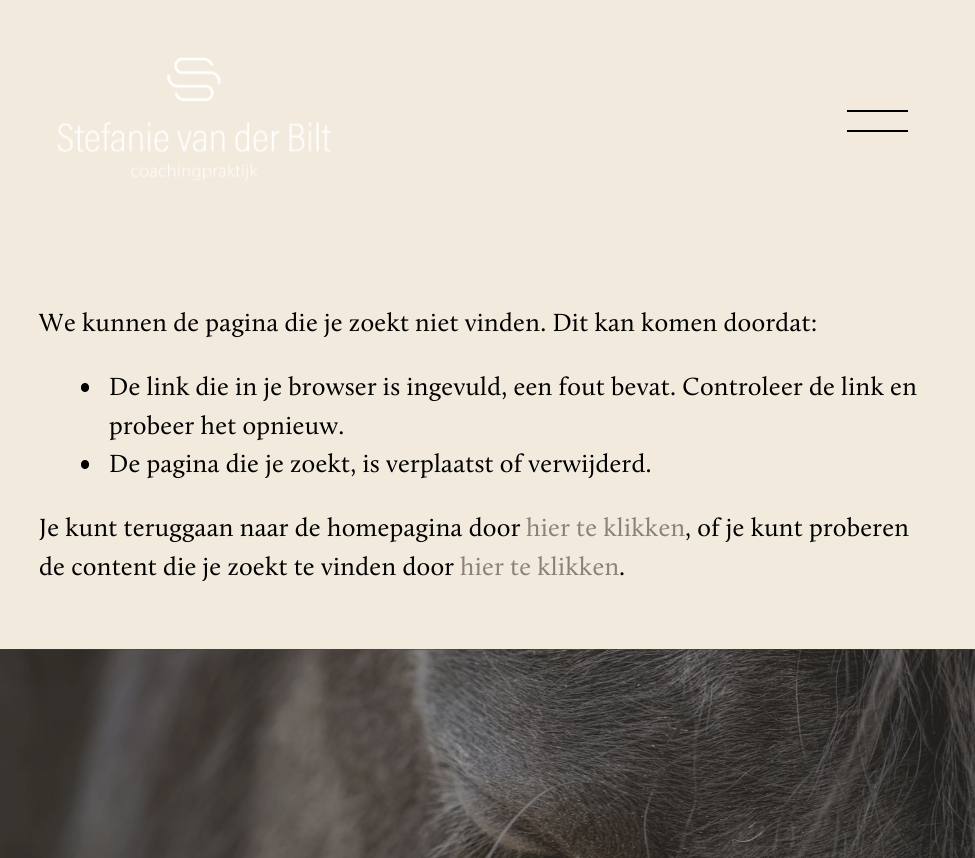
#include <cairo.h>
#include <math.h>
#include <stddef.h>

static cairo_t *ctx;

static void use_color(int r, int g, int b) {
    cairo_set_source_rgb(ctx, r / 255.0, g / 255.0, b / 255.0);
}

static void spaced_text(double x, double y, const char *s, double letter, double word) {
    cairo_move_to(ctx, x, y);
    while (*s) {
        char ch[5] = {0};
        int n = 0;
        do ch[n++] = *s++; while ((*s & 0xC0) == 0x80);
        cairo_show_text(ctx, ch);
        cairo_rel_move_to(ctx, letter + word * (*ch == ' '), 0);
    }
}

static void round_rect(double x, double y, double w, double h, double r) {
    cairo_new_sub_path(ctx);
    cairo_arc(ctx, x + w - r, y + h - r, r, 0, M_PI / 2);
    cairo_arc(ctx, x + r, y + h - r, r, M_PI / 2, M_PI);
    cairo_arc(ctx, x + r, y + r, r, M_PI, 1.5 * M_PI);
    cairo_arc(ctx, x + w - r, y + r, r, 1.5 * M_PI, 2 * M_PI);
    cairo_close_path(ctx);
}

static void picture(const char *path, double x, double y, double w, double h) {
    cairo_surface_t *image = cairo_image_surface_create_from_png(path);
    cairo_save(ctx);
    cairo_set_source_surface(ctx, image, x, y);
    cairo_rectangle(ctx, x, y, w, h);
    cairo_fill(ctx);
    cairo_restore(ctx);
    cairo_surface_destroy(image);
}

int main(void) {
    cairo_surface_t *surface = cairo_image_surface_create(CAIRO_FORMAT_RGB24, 975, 858);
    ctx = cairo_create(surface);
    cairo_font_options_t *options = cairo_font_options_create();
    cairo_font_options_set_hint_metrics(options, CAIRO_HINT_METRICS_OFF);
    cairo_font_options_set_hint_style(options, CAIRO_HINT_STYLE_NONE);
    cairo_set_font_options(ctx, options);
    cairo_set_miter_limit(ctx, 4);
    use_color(242, 234, 221);
    cairo_paint(ctx);
    picture("img1.png", 57, 57, 274, 124);
    use_color(0, 0, 0);
    cairo_rectangle(ctx, 847, 110, 61, 2);
    cairo_fill(ctx);
    cairo_rectangle(ctx, 847, 130, 61, 2);
    cairo_fill(ctx);
    cairo_select_font_face(ctx, "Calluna", CAIRO_FONT_SLANT_NORMAL, CAIRO_FONT_WEIGHT_NORMAL);
    cairo_set_font_size(ctx, 25.7);
    spaced_text(39, 331, "We kunnen de pagina die je zoekt niet vinden. Dit kan komen doordat:", 0.25, 0);
    round_rect(81, 383, 8, 9, 4);
    cairo_fill(ctx);
    spaced_text(109, 395, "De link die in je browser is ingevuld, een fout bevat. Controleer de link en", 0.25, 0);
    spaced_text(109, 434, "probeer het opnieuw.", 0.25, 0);
    round_rect(81, 460, 8, 9, 4);
    cairo_fill(ctx);
    spaced_text(109, 472, "De pagina die je zoekt, is verplaatst of verwijderd.", 0.25, 0);
    spaced_text(39, 536, "Je kunt teruggaan naar de homepagina door", 0.25, 0);
    use_color(140, 129, 119);
    spaced_text(526, 536, "hier te klikken", 0.25, 0);
    use_color(0, 0, 0);
    spaced_text(685, 536, ", of je kunt proberen", 0.25, 0);
    spaced_text(39, 575, "de content die je zoekt te vinden door", 0.25, 0);
    use_color(140, 129, 119);
    spaced_text(460, 575, "hier te klikken", 0.25, 0);
    use_color(0, 0, 0);
    spaced_text(619, 575, ".", 0.25, 0);
    use_color(64, 62, 58);
    cairo_rectangle(ctx, 0, 649, 975, 1);
    cairo_fill(ctx);
    picture("img2.png", 0, 649, 975, 209);
    cairo_surface_write_to_png(surface, "result.png");
    cairo_font_options_destroy(options);
    cairo_destroy(ctx);
    cairo_surface_destroy(surface);
    return 0;
}
